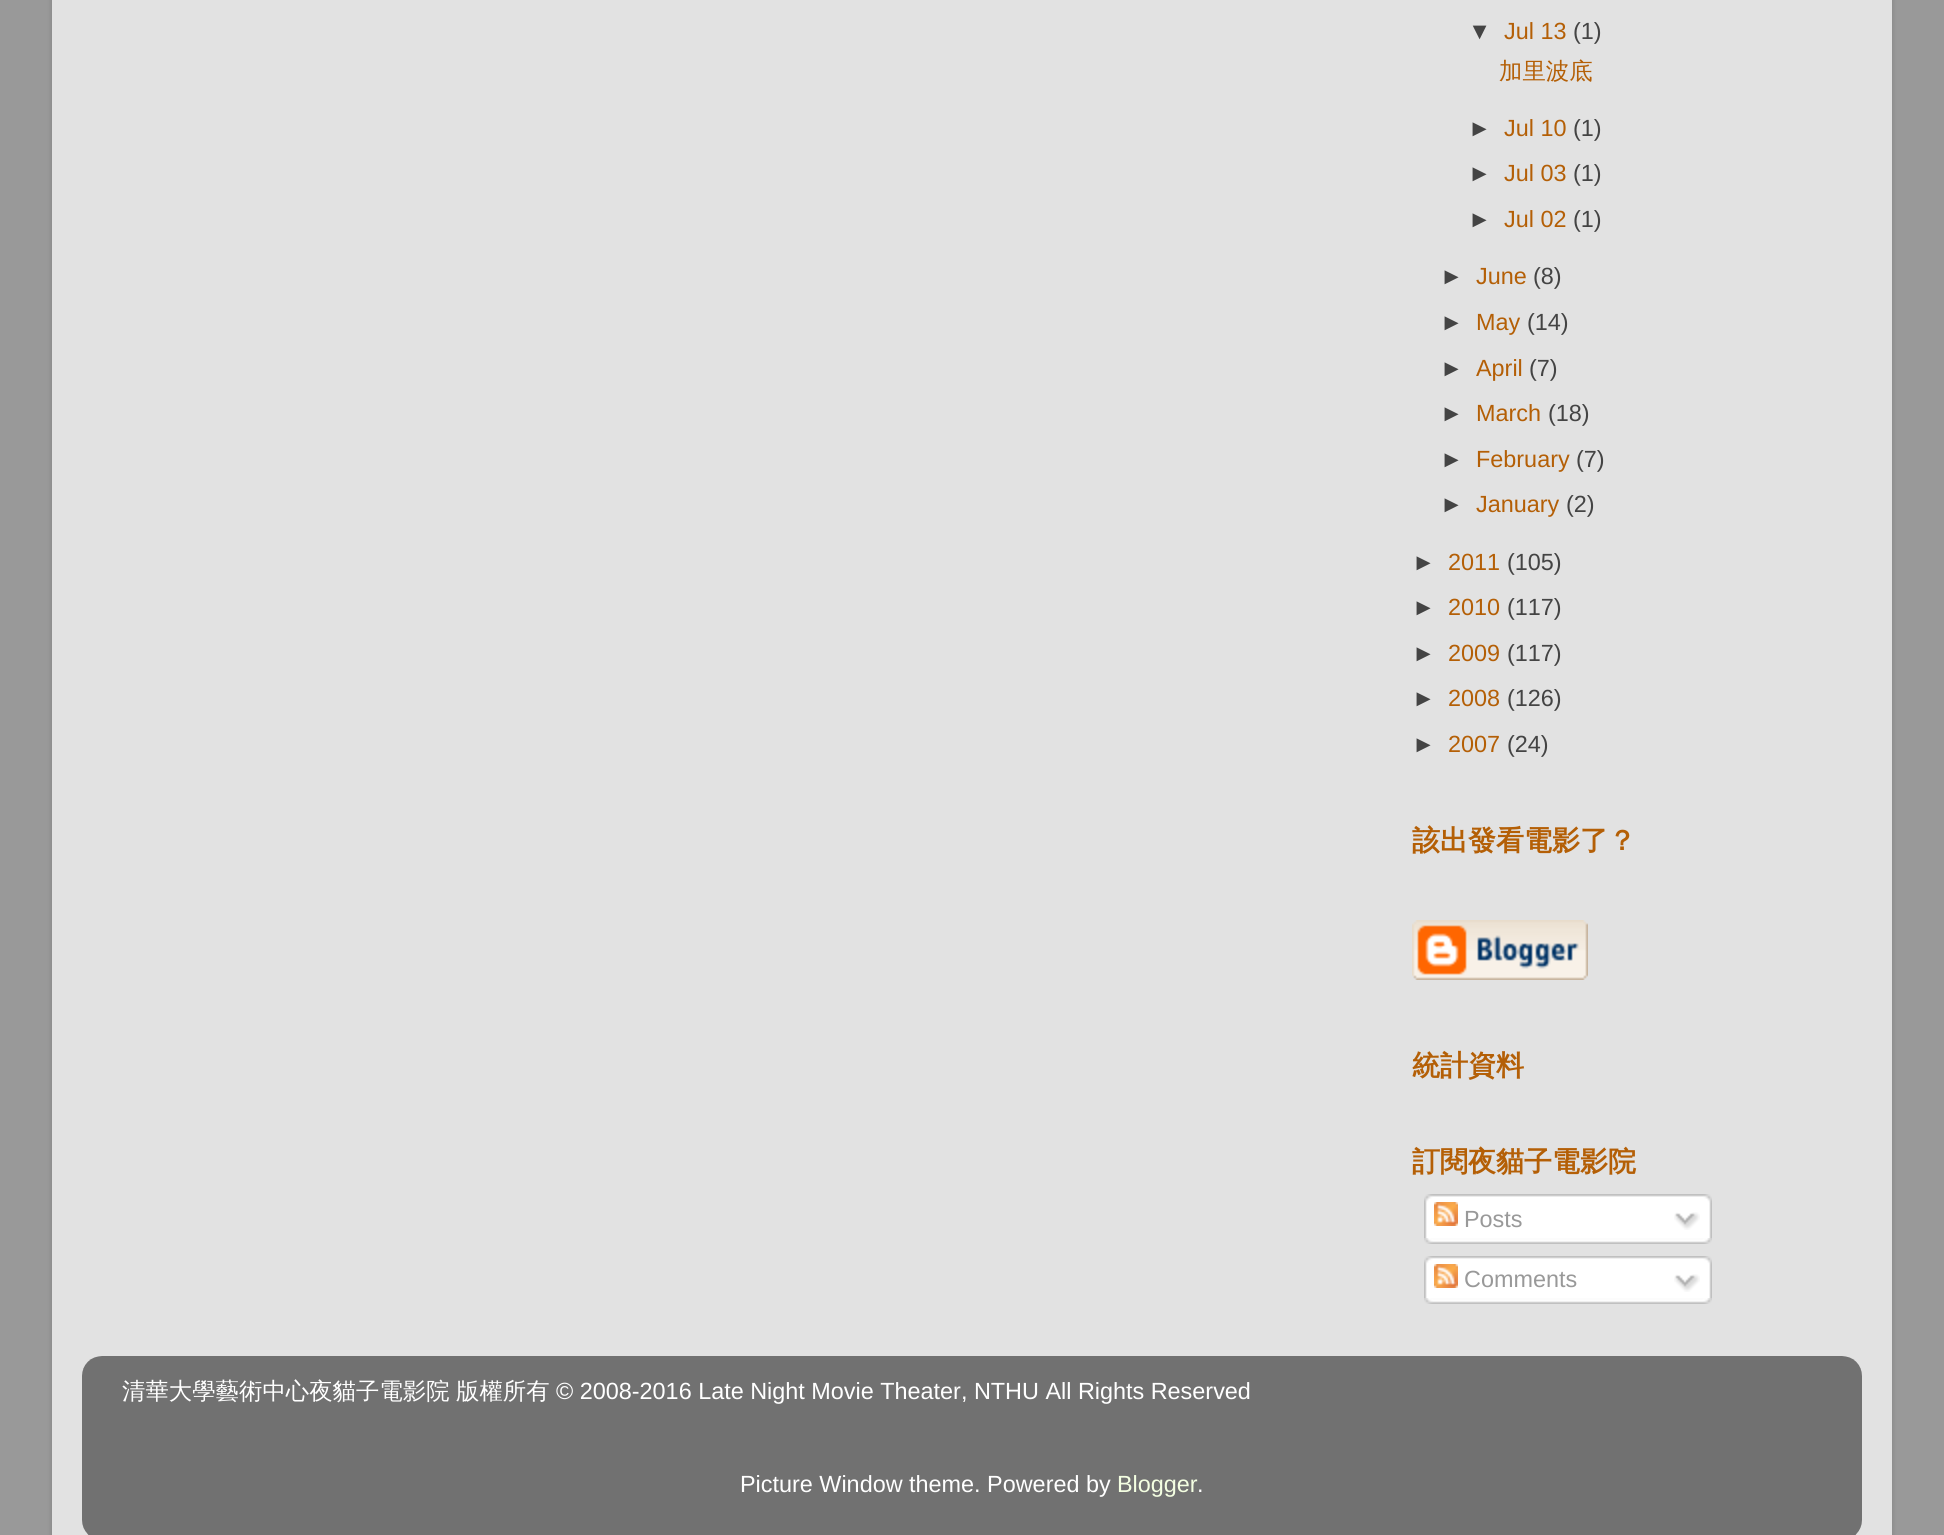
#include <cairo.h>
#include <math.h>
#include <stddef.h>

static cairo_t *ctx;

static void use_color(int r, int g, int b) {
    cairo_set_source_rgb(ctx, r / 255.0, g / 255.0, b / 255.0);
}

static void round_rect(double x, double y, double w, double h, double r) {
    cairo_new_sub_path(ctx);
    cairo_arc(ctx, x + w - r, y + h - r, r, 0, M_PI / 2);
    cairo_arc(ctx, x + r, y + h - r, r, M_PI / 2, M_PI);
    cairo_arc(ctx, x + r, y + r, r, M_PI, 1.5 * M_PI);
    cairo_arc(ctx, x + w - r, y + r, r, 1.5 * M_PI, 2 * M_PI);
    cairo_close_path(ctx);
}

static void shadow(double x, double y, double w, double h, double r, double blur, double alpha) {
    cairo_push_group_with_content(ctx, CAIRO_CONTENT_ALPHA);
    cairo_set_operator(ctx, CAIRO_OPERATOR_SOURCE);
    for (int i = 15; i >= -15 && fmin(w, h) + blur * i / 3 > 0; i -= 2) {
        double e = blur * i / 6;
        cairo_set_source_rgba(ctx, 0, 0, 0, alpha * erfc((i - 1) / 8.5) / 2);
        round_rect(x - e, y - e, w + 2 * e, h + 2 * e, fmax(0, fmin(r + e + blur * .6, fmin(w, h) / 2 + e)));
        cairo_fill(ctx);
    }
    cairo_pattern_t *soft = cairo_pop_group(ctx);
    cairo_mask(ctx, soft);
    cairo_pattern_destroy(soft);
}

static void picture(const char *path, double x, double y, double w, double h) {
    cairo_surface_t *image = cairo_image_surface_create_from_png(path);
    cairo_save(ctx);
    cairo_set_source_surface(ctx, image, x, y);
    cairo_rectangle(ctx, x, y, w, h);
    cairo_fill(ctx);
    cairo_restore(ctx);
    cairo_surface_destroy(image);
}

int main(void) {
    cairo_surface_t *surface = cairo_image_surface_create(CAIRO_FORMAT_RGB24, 1944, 1535);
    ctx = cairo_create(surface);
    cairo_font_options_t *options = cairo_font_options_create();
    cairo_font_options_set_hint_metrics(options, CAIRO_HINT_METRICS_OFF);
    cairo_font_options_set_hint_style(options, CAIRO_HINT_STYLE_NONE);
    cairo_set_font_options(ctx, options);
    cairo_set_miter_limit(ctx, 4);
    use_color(153, 153, 153);
    cairo_paint(ctx);
    use_color(0, 0, 0);
    shadow(52, -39, 1840, 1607, 30, 3, 0.15);
    use_color(226, 226, 226);
    cairo_rectangle(ctx, 52, 0, 1840, 1535);
    cairo_fill(ctx);
    cairo_select_font_face(ctx, "Liberation Sans", CAIRO_FONT_SLANT_NORMAL, CAIRO_FONT_WEIGHT_NORMAL);
    cairo_set_font_size(ctx, 23.4);
    use_color(68, 68, 68);
    cairo_move_to(ctx, 1468, 39);
    cairo_show_text(ctx, "▼");
    use_color(180, 95, 6);
    cairo_move_to(ctx, 1504, 39);
    cairo_show_text(ctx, "Jul 13");
    use_color(68, 68, 68);
    cairo_move_to(ctx, 1573, 39);
    cairo_show_text(ctx, "(1)");
    cairo_select_font_face(ctx, "WenQuanYi Zen Hei Medium", CAIRO_FONT_SLANT_NORMAL, CAIRO_FONT_WEIGHT_NORMAL);
    use_color(180, 95, 6);
    cairo_move_to(ctx, 1499, 79);
    cairo_show_text(ctx, "加里波底");
    cairo_select_font_face(ctx, "Liberation Sans", CAIRO_FONT_SLANT_NORMAL, CAIRO_FONT_WEIGHT_NORMAL);
    use_color(68, 68, 68);
    cairo_move_to(ctx, 1468, 136);
    cairo_show_text(ctx, "►");
    use_color(180, 95, 6);
    cairo_move_to(ctx, 1504, 136);
    cairo_show_text(ctx, "Jul 10");
    use_color(68, 68, 68);
    cairo_move_to(ctx, 1573, 136);
    cairo_show_text(ctx, "(1)");
    cairo_move_to(ctx, 1468, 181);
    cairo_show_text(ctx, "►");
    use_color(180, 95, 6);
    cairo_move_to(ctx, 1504, 181);
    cairo_show_text(ctx, "Jul 03");
    use_color(68, 68, 68);
    cairo_move_to(ctx, 1573, 181);
    cairo_show_text(ctx, "(1)");
    cairo_move_to(ctx, 1468, 227);
    cairo_show_text(ctx, "►");
    use_color(180, 95, 6);
    cairo_move_to(ctx, 1504, 227);
    cairo_show_text(ctx, "Jul 02");
    use_color(68, 68, 68);
    cairo_move_to(ctx, 1573, 227);
    cairo_show_text(ctx, "(1)");
    cairo_move_to(ctx, 1440, 284);
    cairo_show_text(ctx, "►");
    use_color(180, 95, 6);
    cairo_move_to(ctx, 1476, 284);
    cairo_show_text(ctx, "June");
    use_color(68, 68, 68);
    cairo_move_to(ctx, 1533, 284);
    cairo_show_text(ctx, "(8)");
    cairo_move_to(ctx, 1440, 330);
    cairo_show_text(ctx, "►");
    use_color(180, 95, 6);
    cairo_move_to(ctx, 1476, 330);
    cairo_show_text(ctx, "May");
    use_color(68, 68, 68);
    cairo_move_to(ctx, 1527, 330);
    cairo_show_text(ctx, "(14)");
    cairo_move_to(ctx, 1440, 376);
    cairo_show_text(ctx, "►");
    use_color(180, 95, 6);
    cairo_move_to(ctx, 1476, 376);
    cairo_show_text(ctx, "April");
    use_color(68, 68, 68);
    cairo_move_to(ctx, 1529, 376);
    cairo_show_text(ctx, "(7)");
    cairo_move_to(ctx, 1440, 421);
    cairo_show_text(ctx, "►");
    use_color(180, 95, 6);
    cairo_move_to(ctx, 1476, 421);
    cairo_show_text(ctx, "March");
    use_color(68, 68, 68);
    cairo_move_to(ctx, 1548, 421);
    cairo_show_text(ctx, "(18)");
    cairo_move_to(ctx, 1440, 467);
    cairo_show_text(ctx, "►");
    use_color(180, 95, 6);
    cairo_move_to(ctx, 1476, 467);
    cairo_show_text(ctx, "February");
    use_color(68, 68, 68);
    cairo_move_to(ctx, 1576, 467);
    cairo_show_text(ctx, "(7)");
    cairo_move_to(ctx, 1440, 512);
    cairo_show_text(ctx, "►");
    use_color(180, 95, 6);
    cairo_move_to(ctx, 1476, 512);
    cairo_show_text(ctx, "January");
    use_color(68, 68, 68);
    cairo_move_to(ctx, 1566, 512);
    cairo_show_text(ctx, "(2)");
    cairo_move_to(ctx, 1412, 570);
    cairo_show_text(ctx, "►");
    use_color(180, 95, 6);
    cairo_move_to(ctx, 1448, 570);
    cairo_show_text(ctx, "2011");
    use_color(68, 68, 68);
    cairo_move_to(ctx, 1507, 570);
    cairo_show_text(ctx, "(105)");
    cairo_move_to(ctx, 1412, 615);
    cairo_show_text(ctx, "►");
    use_color(180, 95, 6);
    cairo_move_to(ctx, 1448, 615);
    cairo_show_text(ctx, "2010");
    use_color(68, 68, 68);
    cairo_move_to(ctx, 1507, 615);
    cairo_show_text(ctx, "(117)");
    cairo_move_to(ctx, 1412, 661);
    cairo_show_text(ctx, "►");
    use_color(180, 95, 6);
    cairo_move_to(ctx, 1448, 661);
    cairo_show_text(ctx, "2009");
    use_color(68, 68, 68);
    cairo_move_to(ctx, 1507, 661);
    cairo_show_text(ctx, "(117)");
    cairo_move_to(ctx, 1412, 706);
    cairo_show_text(ctx, "►");
    use_color(180, 95, 6);
    cairo_move_to(ctx, 1448, 706);
    cairo_show_text(ctx, "2008");
    use_color(68, 68, 68);
    cairo_move_to(ctx, 1507, 706);
    cairo_show_text(ctx, "(126)");
    cairo_move_to(ctx, 1412, 752);
    cairo_show_text(ctx, "►");
    use_color(180, 95, 6);
    cairo_move_to(ctx, 1448, 752);
    cairo_show_text(ctx, "2007");
    use_color(68, 68, 68);
    cairo_move_to(ctx, 1507, 752);
    cairo_show_text(ctx, "(24)");
    cairo_select_font_face(ctx, "WenQuanYi Zen Hei", CAIRO_FONT_SLANT_NORMAL, CAIRO_FONT_WEIGHT_BOLD);
    cairo_set_font_size(ctx, 28);
    use_color(180, 95, 6);
    cairo_move_to(ctx, 1412, 850);
    cairo_show_text(ctx, "該出發看電影了？");
    picture("img1.png", 1412, 920, 176, 60);
    cairo_move_to(ctx, 1412, 1075);
    cairo_show_text(ctx, "統計資料");
    cairo_move_to(ctx, 1412, 1171);
    cairo_show_text(ctx, "訂閱夜貓子電影院");
    picture("img2.png", 1424, 1194, 288, 44);
    picture("img3.png", 1434, 1202, 24, 24);
    cairo_select_font_face(ctx, "Liberation Sans", CAIRO_FONT_SLANT_NORMAL, CAIRO_FONT_WEIGHT_NORMAL);
    cairo_set_font_size(ctx, 23.4);
    use_color(153, 153, 153);
    cairo_move_to(ctx, 1464, 1227);
    cairo_show_text(ctx, "Posts");
    picture("img4.png", 1674, 1212, 26, 18);
    picture("img5.png", 1424, 1238, 288, 6);
    picture("img6.png", 1424, 1256, 288, 42);
    picture("img3.png", 1434, 1264, 24, 24);
    cairo_move_to(ctx, 1464, 1287);
    cairo_show_text(ctx, "Comments");
    picture("img4.png", 1674, 1274, 26, 18);
    picture("img5.png", 1424, 1298, 288, 6);
    picture("img7.png", 82, 1356, 1780, 179);
    cairo_select_font_face(ctx, "WenQuanYi Zen Hei Medium", CAIRO_FONT_SLANT_NORMAL, CAIRO_FONT_WEIGHT_NORMAL);
    use_color(255, 255, 255);
    cairo_move_to(ctx, 122, 1399);
    cairo_show_text(ctx, "清華大學藝術中心夜貓子電影院");
    cairo_move_to(ctx, 456, 1399);
    cairo_show_text(ctx, "版權所有");
    cairo_select_font_face(ctx, "Liberation Sans", CAIRO_FONT_SLANT_NORMAL, CAIRO_FONT_WEIGHT_NORMAL);
    cairo_move_to(ctx, 556, 1399);
    cairo_show_text(ctx, "© 2008-2016 Late Night Movie Theater, NTHU All Rights Reserved");
    cairo_move_to(ctx, 740, 1492);
    cairo_show_text(ctx, "Picture Window theme. Powered by");
    use_color(244, 255, 226);
    cairo_move_to(ctx, 1117, 1492);
    cairo_show_text(ctx, "Blogger");
    use_color(255, 255, 255);
    cairo_move_to(ctx, 1197, 1492);
    cairo_show_text(ctx, ".");
    cairo_surface_write_to_png(surface, "result.png");
    cairo_font_options_destroy(options);
    cairo_destroy(ctx);
    cairo_surface_destroy(surface);
    return 0;
}
